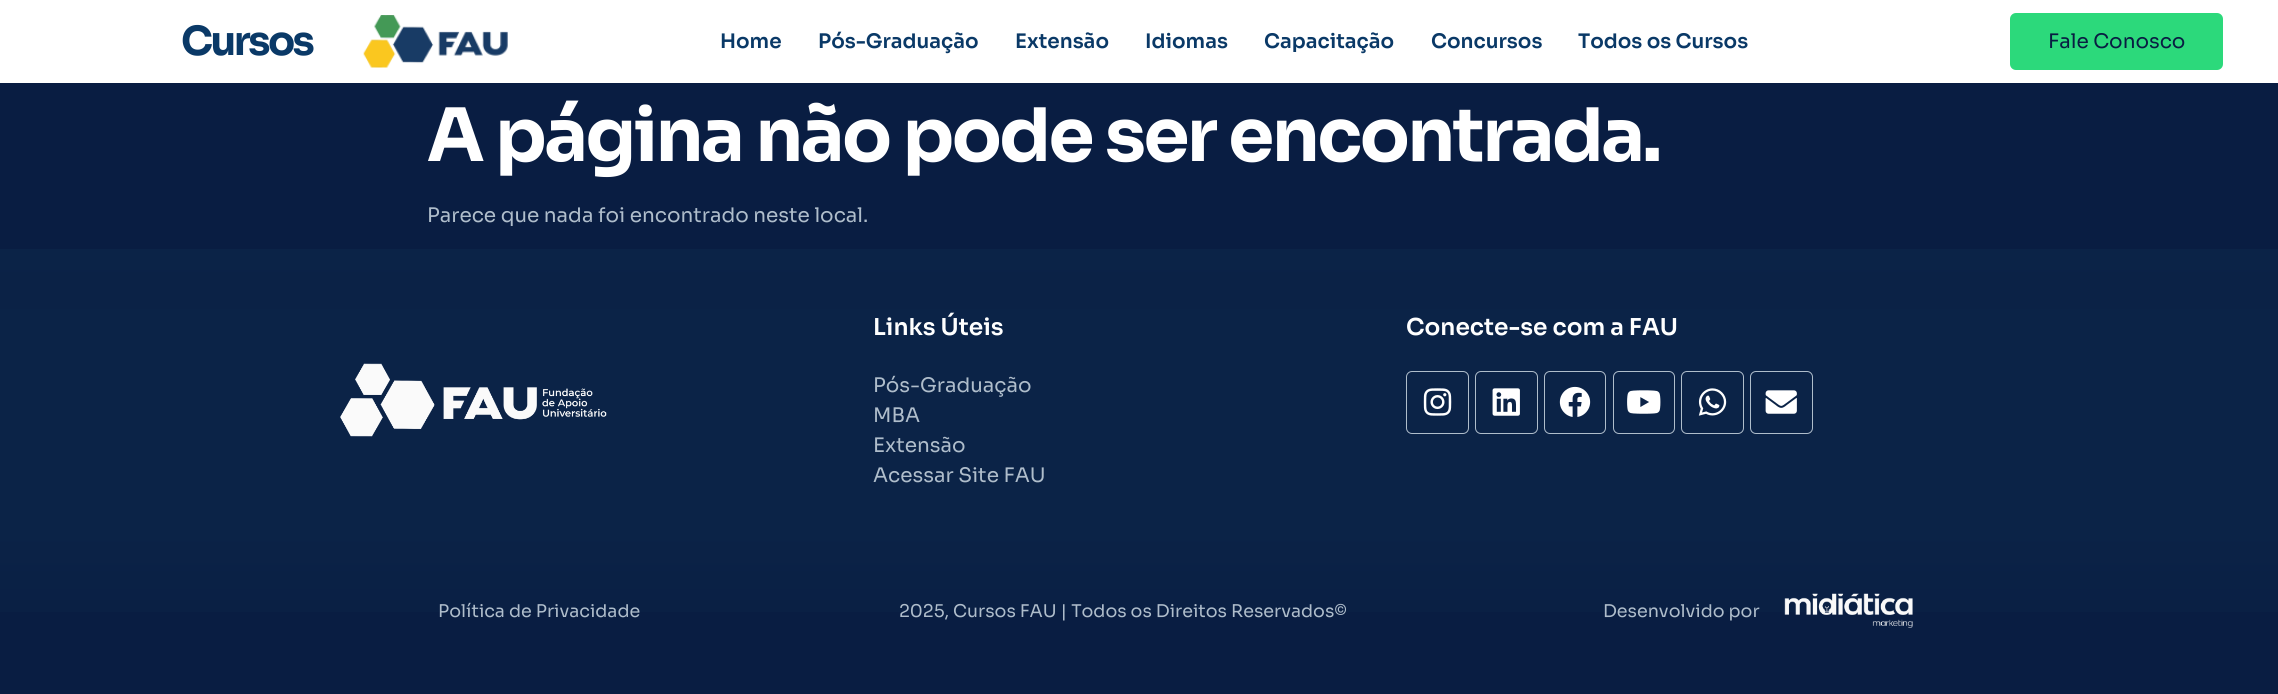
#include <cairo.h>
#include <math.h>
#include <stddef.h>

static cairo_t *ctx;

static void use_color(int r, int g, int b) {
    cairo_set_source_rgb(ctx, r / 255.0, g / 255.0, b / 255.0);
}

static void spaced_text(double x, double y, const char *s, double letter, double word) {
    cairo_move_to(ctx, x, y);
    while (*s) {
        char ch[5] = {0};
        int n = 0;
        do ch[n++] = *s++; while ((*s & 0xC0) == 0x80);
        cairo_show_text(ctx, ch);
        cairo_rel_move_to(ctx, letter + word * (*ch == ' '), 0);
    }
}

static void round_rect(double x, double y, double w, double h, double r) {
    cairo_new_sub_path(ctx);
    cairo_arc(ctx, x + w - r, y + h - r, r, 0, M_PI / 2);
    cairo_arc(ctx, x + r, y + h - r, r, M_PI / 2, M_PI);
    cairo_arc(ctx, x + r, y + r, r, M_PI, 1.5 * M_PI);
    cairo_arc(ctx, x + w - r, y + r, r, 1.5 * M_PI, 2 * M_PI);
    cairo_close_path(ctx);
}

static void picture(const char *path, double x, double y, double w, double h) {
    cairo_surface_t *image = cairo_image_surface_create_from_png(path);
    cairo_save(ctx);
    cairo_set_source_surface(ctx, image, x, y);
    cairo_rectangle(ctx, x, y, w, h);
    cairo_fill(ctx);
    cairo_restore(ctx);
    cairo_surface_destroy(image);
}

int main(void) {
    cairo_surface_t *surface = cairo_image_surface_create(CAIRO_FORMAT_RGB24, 2278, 694);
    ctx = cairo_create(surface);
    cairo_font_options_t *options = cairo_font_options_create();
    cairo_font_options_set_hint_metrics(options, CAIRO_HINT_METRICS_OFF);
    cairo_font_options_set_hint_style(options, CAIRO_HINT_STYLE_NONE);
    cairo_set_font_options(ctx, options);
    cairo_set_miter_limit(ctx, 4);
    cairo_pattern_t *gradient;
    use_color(9, 29, 66);
    cairo_paint(ctx);
    use_color(255, 255, 255);
    cairo_rectangle(ctx, 0, 0, 2278, 83);
    cairo_fill(ctx);
    cairo_select_font_face(ctx, "Sora", CAIRO_FONT_SLANT_NORMAL, CAIRO_FONT_WEIGHT_BOLD);
    cairo_set_font_size(ctx, 40);
    use_color(10, 57, 103);
    spaced_text(181, 55, "Cursos", -2.5, 0);
    picture("img1.png", 363, 15, 145, 53);
    cairo_select_font_face(ctx, "Sora SemiBold", CAIRO_FONT_SLANT_NORMAL, CAIRO_FONT_WEIGHT_NORMAL);
    cairo_set_font_size(ctx, 20);
    cairo_move_to(ctx, 720, 48);
    cairo_show_text(ctx, "Home");
    cairo_move_to(ctx, 818, 48);
    cairo_show_text(ctx, "Pós-Graduação");
    cairo_move_to(ctx, 1015, 48);
    cairo_show_text(ctx, "Extensão");
    cairo_move_to(ctx, 1145, 48);
    cairo_show_text(ctx, "Idiomas");
    cairo_move_to(ctx, 1264, 48);
    cairo_show_text(ctx, "Capacitação");
    cairo_move_to(ctx, 1431, 48);
    cairo_show_text(ctx, "Concursos");
    cairo_move_to(ctx, 1578, 48);
    cairo_show_text(ctx, "Todos os Cursos");
    use_color(44, 217, 123);
    round_rect(2010, 13, 213, 57, 6);
    cairo_fill(ctx);
    cairo_select_font_face(ctx, "Sora", CAIRO_FONT_SLANT_NORMAL, CAIRO_FONT_WEIGHT_NORMAL);
    use_color(9, 29, 66);
    cairo_move_to(ctx, 2048, 48);
    cairo_show_text(ctx, "Fale Conosco");
    cairo_select_font_face(ctx, "Sora", CAIRO_FONT_SLANT_NORMAL, CAIRO_FONT_WEIGHT_BOLD);
    cairo_set_font_size(ctx, 73.6);
    use_color(255, 255, 255);
    spaced_text(427, 161, "A página não pode ser encontrada.", -2.5, 0);
    cairo_select_font_face(ctx, "Sora", CAIRO_FONT_SLANT_NORMAL, CAIRO_FONT_WEIGHT_NORMAL);
    cairo_set_font_size(ctx, 20);
    use_color(175, 189, 203);
    cairo_move_to(ctx, 427, 222);
    cairo_show_text(ctx, "Parece que nada foi encontrado neste local.");
    gradient = cairo_pattern_create_linear(1139, 249, 1139, 531);
    cairo_pattern_add_color_stop_rgba(gradient, 0, 0.043, 0.137, 0.278, 1);
    cairo_pattern_add_color_stop_rgba(gradient, 1, 0.035, 0.114, 0.259, 1);
    cairo_set_source(ctx, gradient);
    cairo_pattern_destroy(gradient);
    cairo_rectangle(ctx, 0, 249, 2278, 60);
    cairo_fill(ctx);
    use_color(11, 35, 71);
    cairo_rectangle(ctx, 0, 309, 2278, 222);
    cairo_fill(ctx);
    cairo_select_font_face(ctx, "Sora SemiBold", CAIRO_FONT_SLANT_NORMAL, CAIRO_FONT_WEIGHT_NORMAL);
    cairo_set_font_size(ctx, 23.25);
    use_color(255, 255, 255);
    cairo_move_to(ctx, 873, 335);
    cairo_show_text(ctx, "Links Úteis");
    cairo_select_font_face(ctx, "Sora", CAIRO_FONT_SLANT_NORMAL, CAIRO_FONT_WEIGHT_NORMAL);
    cairo_set_font_size(ctx, 20);
    use_color(175, 189, 203);
    cairo_move_to(ctx, 873, 392);
    cairo_show_text(ctx, "Pós-Graduação");
    cairo_move_to(ctx, 873, 422);
    cairo_show_text(ctx, "MBA");
    cairo_move_to(ctx, 873, 452);
    cairo_show_text(ctx, "Extensão");
    cairo_move_to(ctx, 873, 482);
    cairo_show_text(ctx, "Acessar Site FAU");
    cairo_select_font_face(ctx, "Sora SemiBold", CAIRO_FONT_SLANT_NORMAL, CAIRO_FONT_WEIGHT_NORMAL);
    cairo_set_font_size(ctx, 23.25);
    use_color(255, 255, 255);
    cairo_move_to(ctx, 1406, 335);
    cairo_show_text(ctx, "Conecte-se com a FAU");
    round_rect(1406.5, 371.5, 62, 62, 5.5);
    use_color(175, 189, 203);
    cairo_set_line_width(ctx, 1);
    cairo_stroke(ctx);
    picture("img2.png", 1423, 388, 29, 28);
    round_rect(1475.5, 371.5, 62, 62, 5.5);
    cairo_stroke(ctx);
    picture("img3.png", 1492, 388, 28, 28);
    round_rect(1544.5, 371.5, 61, 62, 5.5);
    cairo_stroke(ctx);
    picture("img4.png", 1559, 386, 32, 31);
    round_rect(1613.5, 371.5, 61, 62, 5.5);
    cairo_stroke(ctx);
    picture("img5.png", 1627, 390, 34, 24);
    round_rect(1681.5, 371.5, 62, 62, 5.5);
    cairo_stroke(ctx);
    picture("img6.png", 1698, 388, 29, 28);
    round_rect(1750.5, 371.5, 62, 62, 5.5);
    cairo_stroke(ctx);
    picture("img7.png", 1765, 390, 32, 24);
    picture("img8.png", 340, 363, 267, 74);
    gradient = cairo_pattern_create_linear(1139, 531, 1139, 670);
    cairo_pattern_add_color_stop_rgba(gradient, 0, 0.043, 0.137, 0.278, 1);
    cairo_pattern_add_color_stop_rgba(gradient, 1, 0.035, 0.114, 0.259, 1);
    cairo_set_source(ctx, gradient);
    cairo_pattern_destroy(gradient);
    cairo_rectangle(ctx, 0, 531, 2278, 81);
    cairo_fill(ctx);
    cairo_select_font_face(ctx, "Sora", CAIRO_FONT_SLANT_NORMAL, CAIRO_FONT_WEIGHT_NORMAL);
    cairo_set_font_size(ctx, 17.5);
    use_color(175, 189, 203);
    cairo_move_to(ctx, 438, 617);
    cairo_show_text(ctx, "Política de Privacidade");
    cairo_move_to(ctx, 899, 617);
    cairo_show_text(ctx, "2025, Cursos FAU | Todos os Direitos Reservados©");
    cairo_move_to(ctx, 1603, 617);
    cairo_show_text(ctx, "Desenvolvido por");
    picture("img9.png", 1784, 593, 129, 35);
    cairo_surface_write_to_png(surface, "result.png");
    cairo_font_options_destroy(options);
    cairo_destroy(ctx);
    cairo_surface_destroy(surface);
    return 0;
}
